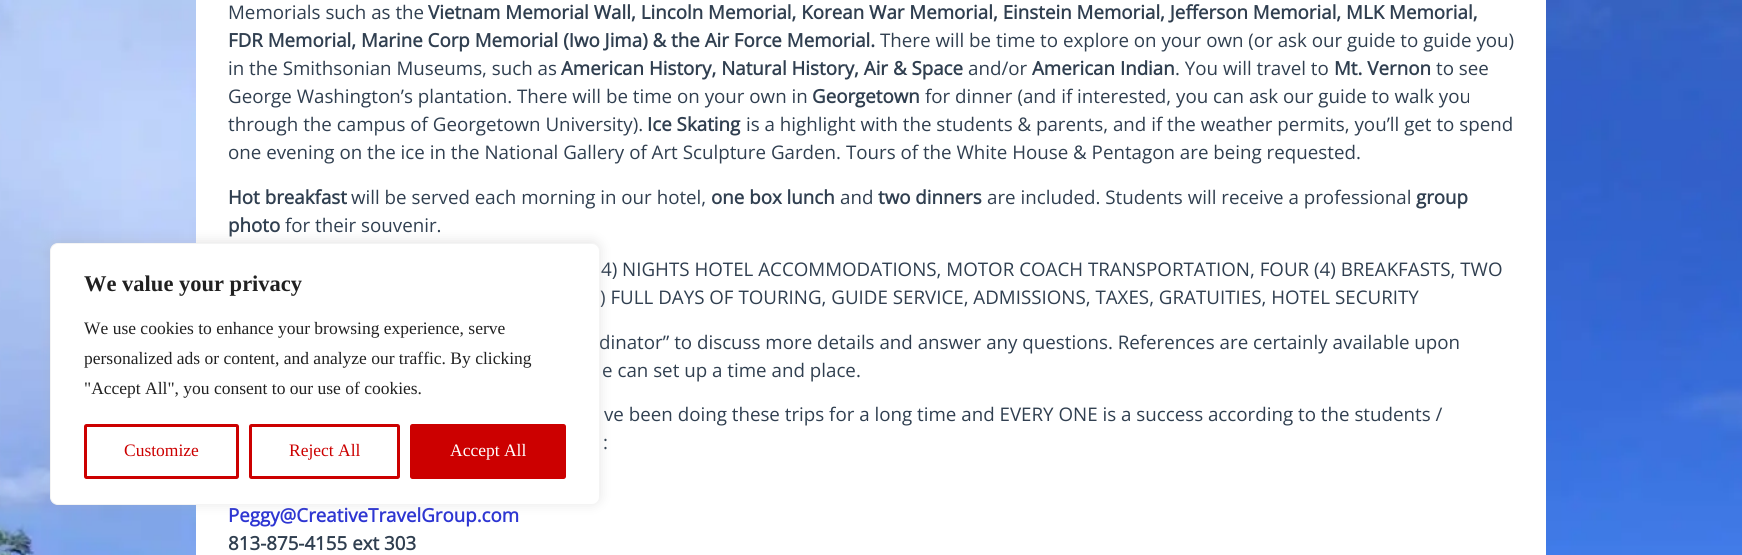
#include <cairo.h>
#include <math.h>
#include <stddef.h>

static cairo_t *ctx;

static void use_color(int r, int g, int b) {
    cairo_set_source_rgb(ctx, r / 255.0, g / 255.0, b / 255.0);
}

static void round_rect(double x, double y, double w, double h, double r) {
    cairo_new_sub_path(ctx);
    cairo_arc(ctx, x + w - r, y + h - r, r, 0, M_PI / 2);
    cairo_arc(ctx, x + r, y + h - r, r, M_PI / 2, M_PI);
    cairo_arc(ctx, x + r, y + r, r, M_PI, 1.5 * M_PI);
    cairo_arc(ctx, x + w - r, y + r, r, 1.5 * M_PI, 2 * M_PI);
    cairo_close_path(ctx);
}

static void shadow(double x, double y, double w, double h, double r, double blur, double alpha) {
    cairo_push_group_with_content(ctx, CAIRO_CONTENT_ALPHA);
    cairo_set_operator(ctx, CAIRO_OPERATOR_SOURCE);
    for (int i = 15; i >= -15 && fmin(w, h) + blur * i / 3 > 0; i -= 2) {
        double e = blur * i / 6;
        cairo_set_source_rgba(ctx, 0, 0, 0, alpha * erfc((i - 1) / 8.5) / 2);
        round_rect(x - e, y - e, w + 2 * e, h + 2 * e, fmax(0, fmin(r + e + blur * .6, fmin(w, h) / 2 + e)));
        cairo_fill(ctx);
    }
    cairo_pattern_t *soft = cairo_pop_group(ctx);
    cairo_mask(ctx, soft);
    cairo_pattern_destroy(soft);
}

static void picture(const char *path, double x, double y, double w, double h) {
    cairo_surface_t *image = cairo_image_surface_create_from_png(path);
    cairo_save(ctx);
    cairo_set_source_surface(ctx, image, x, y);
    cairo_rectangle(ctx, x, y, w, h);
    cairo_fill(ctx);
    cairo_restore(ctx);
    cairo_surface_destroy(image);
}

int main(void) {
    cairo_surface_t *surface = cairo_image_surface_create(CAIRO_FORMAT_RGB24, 1742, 555);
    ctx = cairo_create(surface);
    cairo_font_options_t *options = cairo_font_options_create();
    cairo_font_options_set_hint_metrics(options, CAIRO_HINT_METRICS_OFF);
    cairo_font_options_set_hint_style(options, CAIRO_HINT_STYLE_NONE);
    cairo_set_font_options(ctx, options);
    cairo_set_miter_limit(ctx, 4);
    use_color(255, 255, 255);
    cairo_paint(ctx);
    picture("img1.png", 0, 0, 1742, 555);
    use_color(255, 255, 255);
    cairo_rectangle(ctx, 196, 0, 1350, 555);
    cairo_fill(ctx);
    cairo_select_font_face(ctx, "Open Sans", CAIRO_FONT_SLANT_NORMAL, CAIRO_FONT_WEIGHT_NORMAL);
    cairo_set_font_size(ctx, 18.75);
    use_color(48, 63, 80);
    cairo_move_to(ctx, 228, 19);
    cairo_show_text(ctx, "Memorials such as the");
    cairo_select_font_face(ctx, "Open Sans", CAIRO_FONT_SLANT_NORMAL, CAIRO_FONT_WEIGHT_BOLD);
    cairo_move_to(ctx, 428, 19);
    cairo_show_text(ctx, "Vietnam Memorial Wall, Lincoln Memorial, Korean War Memorial, Einstein Memorial, Jefferson Memorial, MLK Memorial,");
    cairo_move_to(ctx, 228, 47);
    cairo_show_text(ctx, "FDR Memorial, Marine Corp Memorial (Iwo Jima) & the Air Force Memorial.");
    cairo_select_font_face(ctx, "Open Sans", CAIRO_FONT_SLANT_NORMAL, CAIRO_FONT_WEIGHT_NORMAL);
    cairo_move_to(ctx, 880, 47);
    cairo_show_text(ctx, "There will be time to explore on your own (or ask our guide to guide you)");
    cairo_move_to(ctx, 228, 75);
    cairo_show_text(ctx, "in the Smithsonian Museums, such as");
    cairo_select_font_face(ctx, "Open Sans", CAIRO_FONT_SLANT_NORMAL, CAIRO_FONT_WEIGHT_BOLD);
    cairo_move_to(ctx, 561, 75);
    cairo_show_text(ctx, "American History, Natural History, Air & Space");
    cairo_select_font_face(ctx, "Open Sans", CAIRO_FONT_SLANT_NORMAL, CAIRO_FONT_WEIGHT_NORMAL);
    cairo_move_to(ctx, 968, 75);
    cairo_show_text(ctx, "and/or");
    cairo_select_font_face(ctx, "Open Sans", CAIRO_FONT_SLANT_NORMAL, CAIRO_FONT_WEIGHT_BOLD);
    cairo_move_to(ctx, 1032, 75);
    cairo_show_text(ctx, "American Indian");
    cairo_select_font_face(ctx, "Open Sans", CAIRO_FONT_SLANT_NORMAL, CAIRO_FONT_WEIGHT_NORMAL);
    cairo_move_to(ctx, 1175, 75);
    cairo_show_text(ctx, ". You will travel to");
    cairo_select_font_face(ctx, "Open Sans", CAIRO_FONT_SLANT_NORMAL, CAIRO_FONT_WEIGHT_BOLD);
    cairo_move_to(ctx, 1334, 75);
    cairo_show_text(ctx, "Mt. Vernon");
    cairo_select_font_face(ctx, "Open Sans", CAIRO_FONT_SLANT_NORMAL, CAIRO_FONT_WEIGHT_NORMAL);
    cairo_move_to(ctx, 1436, 75);
    cairo_show_text(ctx, "to see");
    cairo_move_to(ctx, 228, 103);
    cairo_show_text(ctx, "George Washington’s plantation. There will be time on your own in");
    cairo_select_font_face(ctx, "Open Sans", CAIRO_FONT_SLANT_NORMAL, CAIRO_FONT_WEIGHT_BOLD);
    cairo_move_to(ctx, 812, 103);
    cairo_show_text(ctx, "Georgetown");
    cairo_select_font_face(ctx, "Open Sans", CAIRO_FONT_SLANT_NORMAL, CAIRO_FONT_WEIGHT_NORMAL);
    cairo_move_to(ctx, 925, 103);
    cairo_show_text(ctx, "for dinner (and if interested, you can ask our guide to walk you");
    cairo_move_to(ctx, 228, 131);
    cairo_show_text(ctx, "through the campus of Georgetown University).");
    cairo_select_font_face(ctx, "Open Sans", CAIRO_FONT_SLANT_NORMAL, CAIRO_FONT_WEIGHT_BOLD);
    cairo_move_to(ctx, 647, 131);
    cairo_show_text(ctx, "Ice Skating");
    cairo_select_font_face(ctx, "Open Sans", CAIRO_FONT_SLANT_NORMAL, CAIRO_FONT_WEIGHT_NORMAL);
    cairo_move_to(ctx, 746, 131);
    cairo_show_text(ctx, "is a highlight with the students & parents, and if the weather permits, you’ll get to spend");
    cairo_move_to(ctx, 228, 159);
    cairo_show_text(ctx, "one evening on the ice in the National Gallery of Art Sculpture Garden. Tours of the White House & Pentagon are being requested.");
    cairo_select_font_face(ctx, "Open Sans", CAIRO_FONT_SLANT_NORMAL, CAIRO_FONT_WEIGHT_BOLD);
    cairo_move_to(ctx, 228, 204);
    cairo_show_text(ctx, "Hot breakfast");
    cairo_select_font_face(ctx, "Open Sans", CAIRO_FONT_SLANT_NORMAL, CAIRO_FONT_WEIGHT_NORMAL);
    cairo_move_to(ctx, 351, 204);
    cairo_show_text(ctx, "will be served each morning in our hotel,");
    cairo_select_font_face(ctx, "Open Sans", CAIRO_FONT_SLANT_NORMAL, CAIRO_FONT_WEIGHT_BOLD);
    cairo_move_to(ctx, 711, 204);
    cairo_show_text(ctx, "one box lunch");
    cairo_select_font_face(ctx, "Open Sans", CAIRO_FONT_SLANT_NORMAL, CAIRO_FONT_WEIGHT_NORMAL);
    cairo_move_to(ctx, 840, 204);
    cairo_show_text(ctx, "and");
    cairo_select_font_face(ctx, "Open Sans", CAIRO_FONT_SLANT_NORMAL, CAIRO_FONT_WEIGHT_BOLD);
    cairo_move_to(ctx, 878, 204);
    cairo_show_text(ctx, "two dinners");
    cairo_select_font_face(ctx, "Open Sans", CAIRO_FONT_SLANT_NORMAL, CAIRO_FONT_WEIGHT_NORMAL);
    cairo_move_to(ctx, 987, 204);
    cairo_show_text(ctx, "are included. Students will receive a professional");
    cairo_select_font_face(ctx, "Open Sans", CAIRO_FONT_SLANT_NORMAL, CAIRO_FONT_WEIGHT_BOLD);
    cairo_move_to(ctx, 1416, 204);
    cairo_show_text(ctx, "group");
    cairo_move_to(ctx, 228, 232);
    cairo_show_text(ctx, "photo");
    cairo_select_font_face(ctx, "Open Sans", CAIRO_FONT_SLANT_NORMAL, CAIRO_FONT_WEIGHT_NORMAL);
    cairo_move_to(ctx, 285, 232);
    cairo_show_text(ctx, "for their souvenir.");
    cairo_move_to(ctx, 601, 276);
    cairo_show_text(ctx, "4) NIGHTS HOTEL ACCOMMODATIONS, MOTOR COACH TRANSPORTATION, FOUR (4) BREAKFASTS, TWO");
    cairo_move_to(ctx, 600, 304);
    cairo_show_text(ctx, ") FULL DAYS OF TOURING, GUIDE SERVICE, ADMISSIONS, TAXES, GRATUITIES, HOTEL SECURITY");
    cairo_move_to(ctx, 599, 349);
    cairo_show_text(ctx, "dinator” to discuss more details and answer any questions. References are certainly available upon");
    cairo_move_to(ctx, 602, 377);
    cairo_show_text(ctx, "e can set up a time and place.");
    cairo_move_to(ctx, 604, 421);
    cairo_show_text(ctx, "ve been doing these trips for a long time and EVERY ONE is a success according to the students /");
    cairo_move_to(ctx, 603, 449);
    cairo_show_text(ctx, ":");
    cairo_select_font_face(ctx, "Open Sans", CAIRO_FONT_SLANT_NORMAL, CAIRO_FONT_WEIGHT_BOLD);
    use_color(45, 53, 210);
    cairo_move_to(ctx, 228, 522);
    cairo_show_text(ctx, "Peggy@CreativeTravelGroup.com");
    use_color(48, 63, 80);
    cairo_move_to(ctx, 228, 550);
    cairo_show_text(ctx, "813-875-4155 ext 303");
    use_color(172, 171, 171);
    shadow(50, 241, 550, 263, 8, 6, 0.3);
    use_color(255, 255, 255);
    round_rect(50.5, 243.5, 549, 261, 7.5);
    cairo_fill_preserve(ctx);
    use_color(244, 244, 244);
    cairo_set_line_width(ctx, 1);
    cairo_stroke(ctx);
    cairo_select_font_face(ctx, "Liberation Serif", CAIRO_FONT_SLANT_NORMAL, CAIRO_FONT_WEIGHT_BOLD);
    cairo_set_font_size(ctx, 22.5);
    use_color(33, 33, 33);
    cairo_move_to(ctx, 84, 291);
    cairo_show_text(ctx, "We value your privacy");
    cairo_select_font_face(ctx, "Liberation Serif", CAIRO_FONT_SLANT_NORMAL, CAIRO_FONT_WEIGHT_NORMAL);
    cairo_set_font_size(ctx, 17.5);
    cairo_move_to(ctx, 84, 334);
    cairo_show_text(ctx, "We use cookies to enhance your browsing experience, serve");
    cairo_move_to(ctx, 84, 364);
    cairo_show_text(ctx, "personalized ads or content, and analyze our traffic. By clicking");
    cairo_move_to(ctx, 84, 394);
    cairo_show_text(ctx, "\"Accept All\", you consent to our use of cookies.");
    round_rect(85.5, 425.5, 152, 52, 1);
    use_color(204, 0, 0);
    cairo_set_line_width(ctx, 3);
    cairo_stroke(ctx);
    cairo_move_to(ctx, 124, 456);
    cairo_show_text(ctx, "Customize");
    round_rect(250.5, 425.5, 148, 52, 1);
    cairo_stroke(ctx);
    cairo_move_to(ctx, 289, 456);
    cairo_show_text(ctx, "Reject All");
    round_rect(411.5, 425.5, 153, 52, 1);
    cairo_fill_preserve(ctx);
    cairo_stroke(ctx);
    use_color(255, 255, 255);
    cairo_move_to(ctx, 450, 456);
    cairo_show_text(ctx, "Accept All");
    cairo_surface_write_to_png(surface, "result.png");
    cairo_font_options_destroy(options);
    cairo_destroy(ctx);
    cairo_surface_destroy(surface);
    return 0;
}
